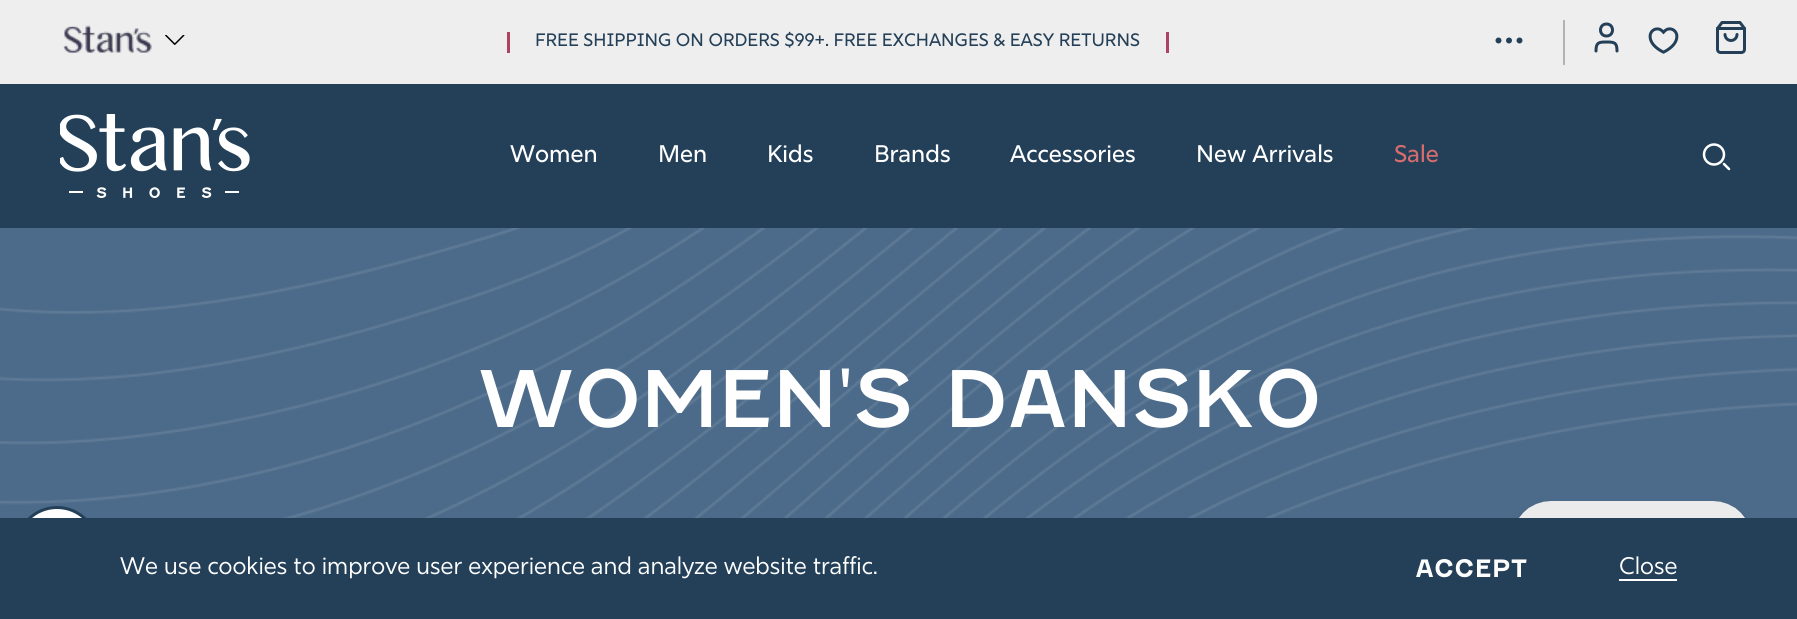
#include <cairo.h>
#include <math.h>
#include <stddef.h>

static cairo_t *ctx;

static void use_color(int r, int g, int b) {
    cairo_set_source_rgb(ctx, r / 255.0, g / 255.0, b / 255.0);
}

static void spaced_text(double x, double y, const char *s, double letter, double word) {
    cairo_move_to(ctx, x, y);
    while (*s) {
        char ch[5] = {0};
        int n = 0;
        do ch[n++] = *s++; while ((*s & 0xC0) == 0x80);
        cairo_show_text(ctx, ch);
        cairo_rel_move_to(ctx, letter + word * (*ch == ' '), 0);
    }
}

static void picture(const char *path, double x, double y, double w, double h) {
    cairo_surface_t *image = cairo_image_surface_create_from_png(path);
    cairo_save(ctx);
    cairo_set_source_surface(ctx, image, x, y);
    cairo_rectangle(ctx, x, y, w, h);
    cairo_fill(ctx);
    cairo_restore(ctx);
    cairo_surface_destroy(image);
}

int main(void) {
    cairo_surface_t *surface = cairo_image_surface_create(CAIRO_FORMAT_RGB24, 1797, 619);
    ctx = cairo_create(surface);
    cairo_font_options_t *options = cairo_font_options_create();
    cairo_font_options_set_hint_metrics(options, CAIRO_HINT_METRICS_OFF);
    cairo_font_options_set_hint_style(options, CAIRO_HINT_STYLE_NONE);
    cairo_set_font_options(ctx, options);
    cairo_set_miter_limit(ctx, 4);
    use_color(239, 238, 238);
    cairo_paint(ctx);
    picture("img1.png", 63, 25, 89, 29);
    picture("img2.png", 165, 35, 20, 10);
    use_color(172, 67, 98);
    cairo_rectangle(ctx, 1166, 32, 3, 21);
    cairo_fill(ctx);
    cairo_rectangle(ctx, 507, 32, 3, 21);
    cairo_fill(ctx);
    cairo_select_font_face(ctx, "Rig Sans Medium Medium", CAIRO_FONT_SLANT_NORMAL, CAIRO_FONT_WEIGHT_NORMAL);
    cairo_set_font_size(ctx, 18);
    use_color(35, 64, 88);
    cairo_move_to(ctx, 535, 46);
    cairo_show_text(ctx, "FREE SHIPPING ON ORDERS $99+. FREE EXCHANGES & EASY RETURNS");
    picture("img3.png", 1495, 37, 28, 7);
    use_color(179, 179, 179);
    cairo_rectangle(ctx, 1563, 20, 2, 45);
    cairo_fill(ctx);
    cairo_new_path(ctx);
    cairo_move_to(ctx, 1617, 51);
    cairo_curve_to(ctx, 1617, 42.5, 1614.5, 42, 1606.5, 42);
    cairo_curve_to(ctx, 1598.5, 42, 1596, 42.5, 1596, 51);
    cairo_move_to(ctx, 1606.5, 36);
    cairo_curve_to(ctx, 1614.5, 36, 1614.5, 24, 1606.5, 24);
    cairo_curve_to(ctx, 1598.5, 24, 1598.5, 36, 1606.5, 36);
    cairo_close_path(ctx);
    use_color(35, 64, 88);
    cairo_set_line_width(ctx, 3);
    cairo_set_line_cap(ctx, CAIRO_LINE_CAP_ROUND);
    cairo_set_line_join(ctx, CAIRO_LINE_JOIN_ROUND);
    cairo_stroke(ctx);
    picture("img4.png", 1648, 27, 31, 27);
    picture("img5.png", 1716, 21, 30, 33);
    cairo_rectangle(ctx, 0, 84, 1797, 144);
    cairo_fill(ctx);
    picture("img6.png", 60, 114, 190, 84);
    cairo_set_font_size(ctx, 24);
    use_color(255, 255, 255);
    cairo_move_to(ctx, 510, 162);
    cairo_show_text(ctx, "Women");
    cairo_move_to(ctx, 658, 162);
    cairo_show_text(ctx, "Men");
    cairo_move_to(ctx, 767, 162);
    cairo_show_text(ctx, "Kids");
    cairo_move_to(ctx, 874, 162);
    cairo_show_text(ctx, "Brands");
    cairo_move_to(ctx, 1010, 162);
    cairo_show_text(ctx, "Accessories");
    cairo_move_to(ctx, 1196, 162);
    cairo_show_text(ctx, "New Arrivals");
    use_color(215, 108, 110);
    cairo_move_to(ctx, 1394, 162);
    cairo_show_text(ctx, "Sale");
    cairo_new_path(ctx);
    cairo_arc(ctx, 1714, 154.5, 10, 0, 2 * M_PI);
    use_color(255, 255, 255);
    cairo_set_line_width(ctx, 2.5);
    cairo_set_line_cap(ctx, CAIRO_LINE_CAP_BUTT);
    cairo_set_line_join(ctx, CAIRO_LINE_JOIN_MITER);
    cairo_stroke(ctx);
    cairo_new_path(ctx);
    cairo_move_to(ctx, 1729, 169);
    cairo_line_to(ctx, 1724, 164);
    cairo_set_line_cap(ctx, CAIRO_LINE_CAP_ROUND);
    cairo_stroke(ctx);
    use_color(76, 107, 138);
    cairo_rectangle(ctx, 0, 228, 1797, 290);
    cairo_fill(ctx);
    picture("img7.png", 0, 228, 1797, 290);
    cairo_select_font_face(ctx, "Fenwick", CAIRO_FONT_SLANT_NORMAL, CAIRO_FONT_WEIGHT_NORMAL);
    cairo_set_font_size(ctx, 78);
    use_color(255, 255, 255);
    spaced_text(477, 427, "WOMEN'S DANSKO", -1.5, 0);
    cairo_new_path(ctx);
    cairo_arc(ctx, 57, 548, 40.5, 0, 2 * M_PI);
    cairo_fill_preserve(ctx);
    use_color(35, 64, 88);
    cairo_set_line_width(ctx, 3);
    cairo_set_line_cap(ctx, CAIRO_LINE_CAP_BUTT);
    cairo_stroke(ctx);
    picture("img8.png", 1517, 501, 230, 17);
    cairo_rectangle(ctx, 0, 518, 1797, 101);
    cairo_fill(ctx);
    cairo_select_font_face(ctx, "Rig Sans", CAIRO_FONT_SLANT_NORMAL, CAIRO_FONT_WEIGHT_NORMAL);
    cairo_set_font_size(ctx, 24);
    use_color(255, 255, 255);
    cairo_move_to(ctx, 120, 574);
    cairo_show_text(ctx, "We use cookies to improve user experience and analyze website traffic.");
    cairo_select_font_face(ctx, "Fenwick", CAIRO_FONT_SLANT_NORMAL, CAIRO_FONT_WEIGHT_BOLD);
    cairo_move_to(ctx, 1415, 577);
    cairo_show_text(ctx, "ACCEPT");
    cairo_select_font_face(ctx, "Rig Sans", CAIRO_FONT_SLANT_NORMAL, CAIRO_FONT_WEIGHT_NORMAL);
    cairo_move_to(ctx, 1619, 574);
    cairo_show_text(ctx, "Close");
    cairo_rectangle(ctx, 1619, 579, 58, 2);
    cairo_fill(ctx);
    cairo_surface_write_to_png(surface, "result.png");
    cairo_font_options_destroy(options);
    cairo_destroy(ctx);
    cairo_surface_destroy(surface);
    return 0;
}
